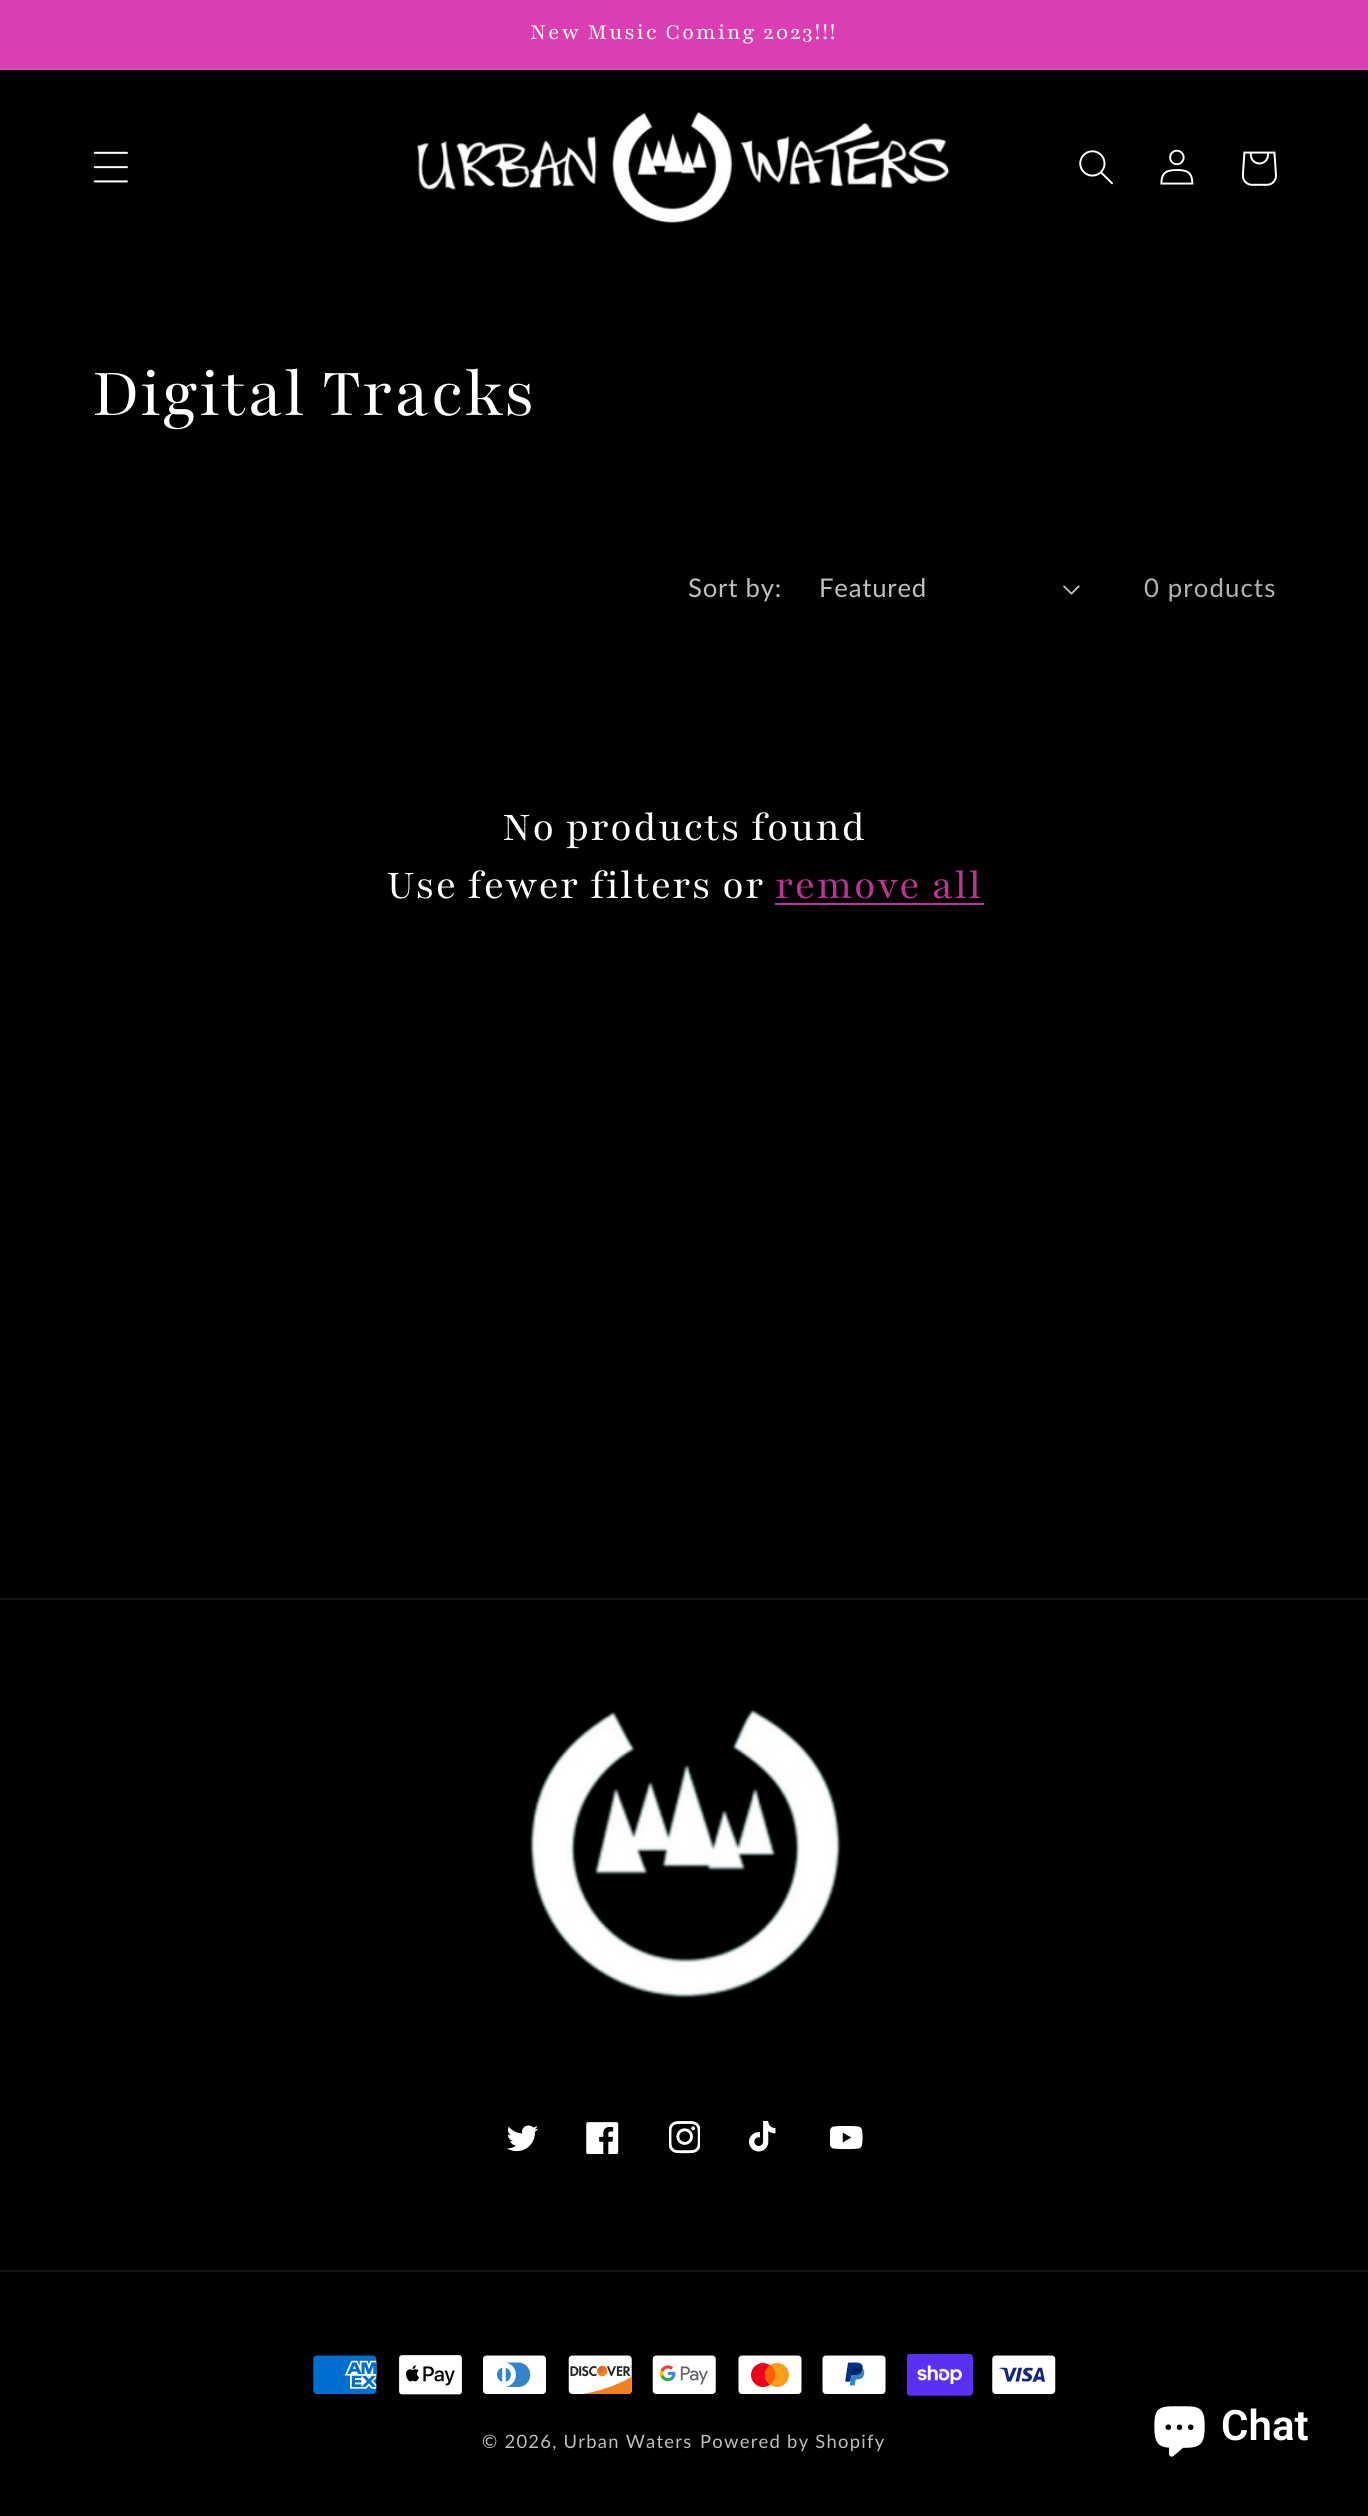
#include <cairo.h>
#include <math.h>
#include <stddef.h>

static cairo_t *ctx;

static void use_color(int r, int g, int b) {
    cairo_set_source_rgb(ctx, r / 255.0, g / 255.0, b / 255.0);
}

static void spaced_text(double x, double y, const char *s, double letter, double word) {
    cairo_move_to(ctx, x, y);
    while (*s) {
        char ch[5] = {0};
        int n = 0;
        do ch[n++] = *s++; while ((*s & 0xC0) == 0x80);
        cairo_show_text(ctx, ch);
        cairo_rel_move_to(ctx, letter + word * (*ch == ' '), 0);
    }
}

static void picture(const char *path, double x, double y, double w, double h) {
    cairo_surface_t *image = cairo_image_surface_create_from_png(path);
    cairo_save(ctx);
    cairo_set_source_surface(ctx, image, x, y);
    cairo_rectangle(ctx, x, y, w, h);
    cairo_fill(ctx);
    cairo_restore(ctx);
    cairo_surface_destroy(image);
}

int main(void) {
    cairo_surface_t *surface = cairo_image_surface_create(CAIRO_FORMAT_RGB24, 1368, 2516);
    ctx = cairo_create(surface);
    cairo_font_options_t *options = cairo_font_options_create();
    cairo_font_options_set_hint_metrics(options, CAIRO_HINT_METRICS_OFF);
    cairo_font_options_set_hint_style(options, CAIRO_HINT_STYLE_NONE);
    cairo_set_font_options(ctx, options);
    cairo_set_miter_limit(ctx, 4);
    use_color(0, 0, 0);
    cairo_paint(ctx);
    use_color(219, 62, 177);
    cairo_rectangle(ctx, 0, 0, 1368, 68);
    cairo_fill(ctx);
    use_color(222, 77, 183);
    cairo_rectangle(ctx, 0, 68, 1368, 2);
    cairo_fill(ctx);
    cairo_select_font_face(ctx, "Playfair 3", CAIRO_FONT_SLANT_NORMAL, CAIRO_FONT_WEIGHT_NORMAL);
    cairo_set_font_size(ctx, 23.9);
    use_color(255, 255, 255);
    spaced_text(530, 39, "New Music Coming 2023!!!", 1.8, 0);
    picture("img1.png", 93, 151, 35, 32);
    picture("img2.png", 417, 111, 533, 113);
    picture("img3.png", 1079, 150, 34, 35);
    picture("img4.png", 1160, 149, 34, 36);
    picture("img5.png", 1241, 151, 36, 35);
    cairo_select_font_face(ctx, "Playfair", CAIRO_FONT_SLANT_NORMAL, CAIRO_FONT_WEIGHT_NORMAL);
    cairo_set_font_size(ctx, 73.5);
    spaced_text(92, 415, "Digital Tracks", 1.1, 0);
    cairo_select_font_face(ctx, "Lato", CAIRO_FONT_SLANT_NORMAL, CAIRO_FONT_WEIGHT_NORMAL);
    cairo_set_font_size(ctx, 25.75);
    use_color(191, 191, 191);
    spaced_text(688, 597, "Sort by:", 0.75, 0);
    spaced_text(819, 597, "Featured", 0.75, 0);
    picture("img6.png", 1063, 585, 17, 10);
    use_color(179, 179, 179);
    spaced_text(1144, 597, "0 products", 1.1, 0);
    cairo_select_font_face(ctx, "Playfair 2", CAIRO_FONT_SLANT_NORMAL, CAIRO_FONT_WEIGHT_NORMAL);
    cairo_set_font_size(ctx, 44);
    use_color(255, 255, 255);
    spaced_text(502, 840, "No products found", 1.1, 0);
    spaced_text(386, 898, "Use fewer filters or", 1.1, 0);
    use_color(186, 53, 150);
    spaced_text(775, 898, "remove all", 1.1, 0);
    cairo_rectangle(ctx, 775, 903, 209, 2);
    cairo_fill(ctx);
    picture("img7.png", 1154, 2406, 51, 51);
    cairo_select_font_face(ctx, "Roboto SemiBold", CAIRO_FONT_SLANT_NORMAL, CAIRO_FONT_WEIGHT_NORMAL);
    cairo_set_font_size(ctx, 42);
    use_color(255, 255, 255);
    cairo_move_to(ctx, 1221, 2440);
    cairo_show_text(ctx, "Chat");
    use_color(20, 20, 20);
    cairo_rectangle(ctx, 0, 1598, 1368, 2);
    cairo_fill(ctx);
    picture("img8.png", 530, 1709, 311, 289);
    picture("img9.png", 506, 2125, 32, 27);
    picture("img10.png", 586, 2122, 33, 32);
    picture("img11.png", 669, 2121, 31, 33);
    picture("img12.png", 749, 2121, 27, 31);
    picture("img13.png", 830, 2125, 33, 25);
    cairo_rectangle(ctx, 0, 2270, 1368, 2);
    cairo_fill(ctx);
    picture("img14.png", 313, 2355, 64, 39);
    picture("img15.png", 399, 2355, 63, 40);
    picture("img16.png", 483, 2355, 63, 39);
    picture("img17.png", 568, 2355, 64, 39);
    picture("img18.png", 652, 2355, 64, 39);
    picture("img19.png", 738, 2355, 64, 39);
    picture("img20.png", 822, 2355, 64, 39);
    picture("img21.png", 907, 2354, 66, 42);
    picture("img22.png", 992, 2355, 64, 39);
    cairo_select_font_face(ctx, "Lato", CAIRO_FONT_SLANT_NORMAL, CAIRO_FONT_WEIGHT_NORMAL);
    cairo_set_font_size(ctx, 18.4);
    use_color(191, 191, 191);
    spaced_text(482, 2448, "© 2026, Urban Waters", 1.25, 0);
    spaced_text(700, 2448, "Powered by Shopify", 1.25, 0);
    cairo_surface_write_to_png(surface, "result.png");
    cairo_font_options_destroy(options);
    cairo_destroy(ctx);
    cairo_surface_destroy(surface);
    return 0;
}
